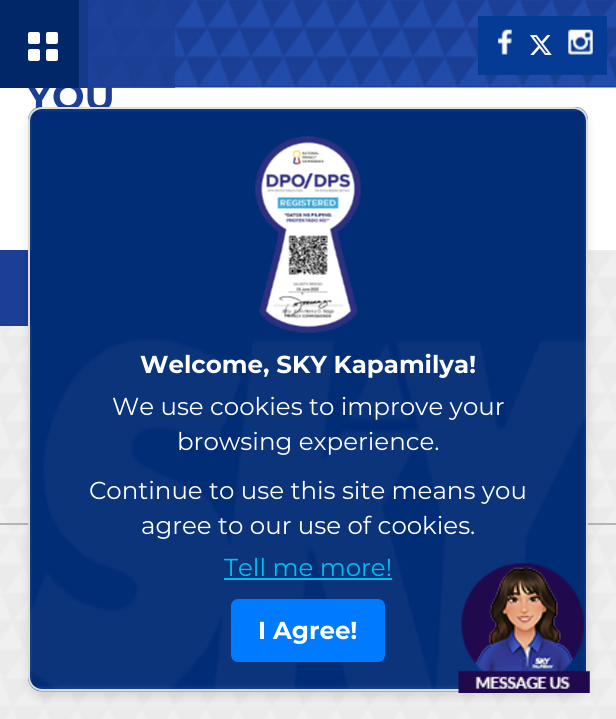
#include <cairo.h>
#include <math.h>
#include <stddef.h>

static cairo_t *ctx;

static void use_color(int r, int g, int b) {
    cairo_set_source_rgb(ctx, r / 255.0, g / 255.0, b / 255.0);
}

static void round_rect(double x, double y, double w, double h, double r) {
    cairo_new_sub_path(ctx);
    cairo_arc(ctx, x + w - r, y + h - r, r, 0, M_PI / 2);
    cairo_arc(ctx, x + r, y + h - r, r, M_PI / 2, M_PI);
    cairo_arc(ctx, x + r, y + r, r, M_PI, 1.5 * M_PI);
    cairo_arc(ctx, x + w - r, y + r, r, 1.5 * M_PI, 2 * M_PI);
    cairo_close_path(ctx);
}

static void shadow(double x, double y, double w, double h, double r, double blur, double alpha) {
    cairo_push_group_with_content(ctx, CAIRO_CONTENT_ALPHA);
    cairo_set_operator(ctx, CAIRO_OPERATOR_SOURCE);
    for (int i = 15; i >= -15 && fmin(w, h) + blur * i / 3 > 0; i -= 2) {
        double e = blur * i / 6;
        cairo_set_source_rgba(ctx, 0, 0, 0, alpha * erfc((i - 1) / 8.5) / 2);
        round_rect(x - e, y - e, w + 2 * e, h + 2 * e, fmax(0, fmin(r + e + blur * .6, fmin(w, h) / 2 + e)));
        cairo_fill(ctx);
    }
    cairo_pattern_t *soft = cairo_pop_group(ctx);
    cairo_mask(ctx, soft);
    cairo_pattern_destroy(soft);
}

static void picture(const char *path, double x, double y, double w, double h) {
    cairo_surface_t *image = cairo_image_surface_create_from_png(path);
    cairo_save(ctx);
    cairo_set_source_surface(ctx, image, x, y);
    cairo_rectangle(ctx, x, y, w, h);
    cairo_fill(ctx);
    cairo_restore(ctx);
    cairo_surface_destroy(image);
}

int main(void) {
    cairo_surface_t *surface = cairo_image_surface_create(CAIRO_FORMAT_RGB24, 616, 719);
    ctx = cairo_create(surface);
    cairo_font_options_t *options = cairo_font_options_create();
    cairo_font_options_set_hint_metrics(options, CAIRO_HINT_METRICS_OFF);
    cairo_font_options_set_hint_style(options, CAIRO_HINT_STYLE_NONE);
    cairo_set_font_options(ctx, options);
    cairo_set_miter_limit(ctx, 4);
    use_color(255, 255, 255);
    cairo_paint(ctx);
    cairo_select_font_face(ctx, "Montserrat", CAIRO_FONT_SLANT_NORMAL, CAIRO_FONT_WEIGHT_BOLD);
    cairo_set_font_size(ctx, 38.5);
    use_color(28, 63, 149);
    cairo_move_to(ctx, 26, 110);
    cairo_show_text(ctx, "YOU");
    picture("img1.png", 88, 0, 528, 88);
    use_color(2, 39, 104);
    cairo_rectangle(ctx, 0, 0, 88, 88);
    cairo_fill(ctx);
    use_color(255, 255, 255);
    round_rect(28, 32, 12, 12, 2);
    cairo_fill(ctx);
    round_rect(46, 32, 12, 12, 2);
    cairo_fill(ctx);
    round_rect(28, 49, 12, 12, 2);
    cairo_fill(ctx);
    round_rect(46, 49, 12, 12, 2);
    cairo_fill(ctx);
    cairo_set_source_rgba(ctx, 0.11, 0.247, 0.58, 0.8);
    cairo_rectangle(ctx, 79, 0, 96, 88);
    cairo_fill(ctx);
    use_color(6, 59, 149);
    cairo_rectangle(ctx, 478, 16, 129, 59);
    cairo_fill(ctx);
    picture("img2.png", 498, 29, 14, 26);
    picture("img3.png", 529, 35, 23, 20);
    picture("img4.png", 568, 29, 25, 26);
    picture("img5.png", 0, 250, 616, 469);
    use_color(28, 63, 149);
    cairo_rectangle(ctx, 0, 250, 33, 76);
    cairo_fill(ctx);
    use_color(181, 181, 181);
    cairo_rectangle(ctx, 0, 523, 616, 2);
    cairo_fill(ctx);
    cairo_save(ctx);
    cairo_set_fill_rule(ctx, CAIRO_FILL_RULE_EVEN_ODD);
    cairo_new_path(ctx);
    cairo_move_to(ctx, 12, 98);
    cairo_line_to(ctx, 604, 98);
    cairo_line_to(ctx, 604, 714);
    cairo_line_to(ctx, 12, 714);
    cairo_close_path(ctx);
    cairo_move_to(ctx, 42, 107);
    cairo_line_to(ctx, 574, 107);
    cairo_curve_to(ctx, 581.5, 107, 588, 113.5, 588, 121);
    cairo_line_to(ctx, 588, 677);
    cairo_curve_to(ctx, 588, 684.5, 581.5, 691, 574, 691);
    cairo_line_to(ctx, 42, 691);
    cairo_curve_to(ctx, 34.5, 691, 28, 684.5, 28, 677);
    cairo_line_to(ctx, 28, 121);
    cairo_curve_to(ctx, 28, 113.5, 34.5, 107, 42, 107);
    cairo_close_path(ctx);
    cairo_clip(ctx);
    use_color(0, 0, 0);
    shadow(28, 114, 560, 584, 14, 5, 0.1);
    cairo_restore(ctx);
    picture("img6.png", 28, 107, 560, 585);
    round_rect(29, 108, 558, 582, 13);
    use_color(221, 221, 221);
    cairo_stroke(ctx);
    picture("img7.png", 255, 136, 106, 197);
    cairo_set_font_size(ctx, 24.5);
    use_color(255, 255, 255);
    cairo_move_to(ctx, 140, 373);
    cairo_show_text(ctx, "Welcome, SKY Kapamilya!");
    cairo_select_font_face(ctx, "Montserrat", CAIRO_FONT_SLANT_NORMAL, CAIRO_FONT_WEIGHT_NORMAL);
    cairo_move_to(ctx, 112, 415);
    cairo_show_text(ctx, "We use cookies to improve your");
    cairo_move_to(ctx, 177, 450);
    cairo_show_text(ctx, "browsing experience.");
    cairo_move_to(ctx, 89, 499);
    cairo_show_text(ctx, "Continue to use this site means you");
    cairo_move_to(ctx, 141, 534);
    cairo_show_text(ctx, "agree to our use of cookies.");
    use_color(0, 191, 240);
    cairo_move_to(ctx, 224, 576);
    cairo_show_text(ctx, "Tell me more!");
    cairo_rectangle(ctx, 224, 578, 168, 2);
    cairo_fill(ctx);
    use_color(0, 123, 255);
    round_rect(231, 599, 154, 63, 7);
    cairo_fill(ctx);
    cairo_select_font_face(ctx, "Montserrat", CAIRO_FONT_SLANT_NORMAL, CAIRO_FONT_WEIGHT_BOLD);
    use_color(255, 255, 255);
    cairo_move_to(ctx, 258, 639);
    cairo_show_text(ctx, "I Agree!");
    picture("img8.png", 458, 563, 132, 130);
    cairo_surface_write_to_png(surface, "result.png");
    cairo_font_options_destroy(options);
    cairo_destroy(ctx);
    cairo_surface_destroy(surface);
    return 0;
}
